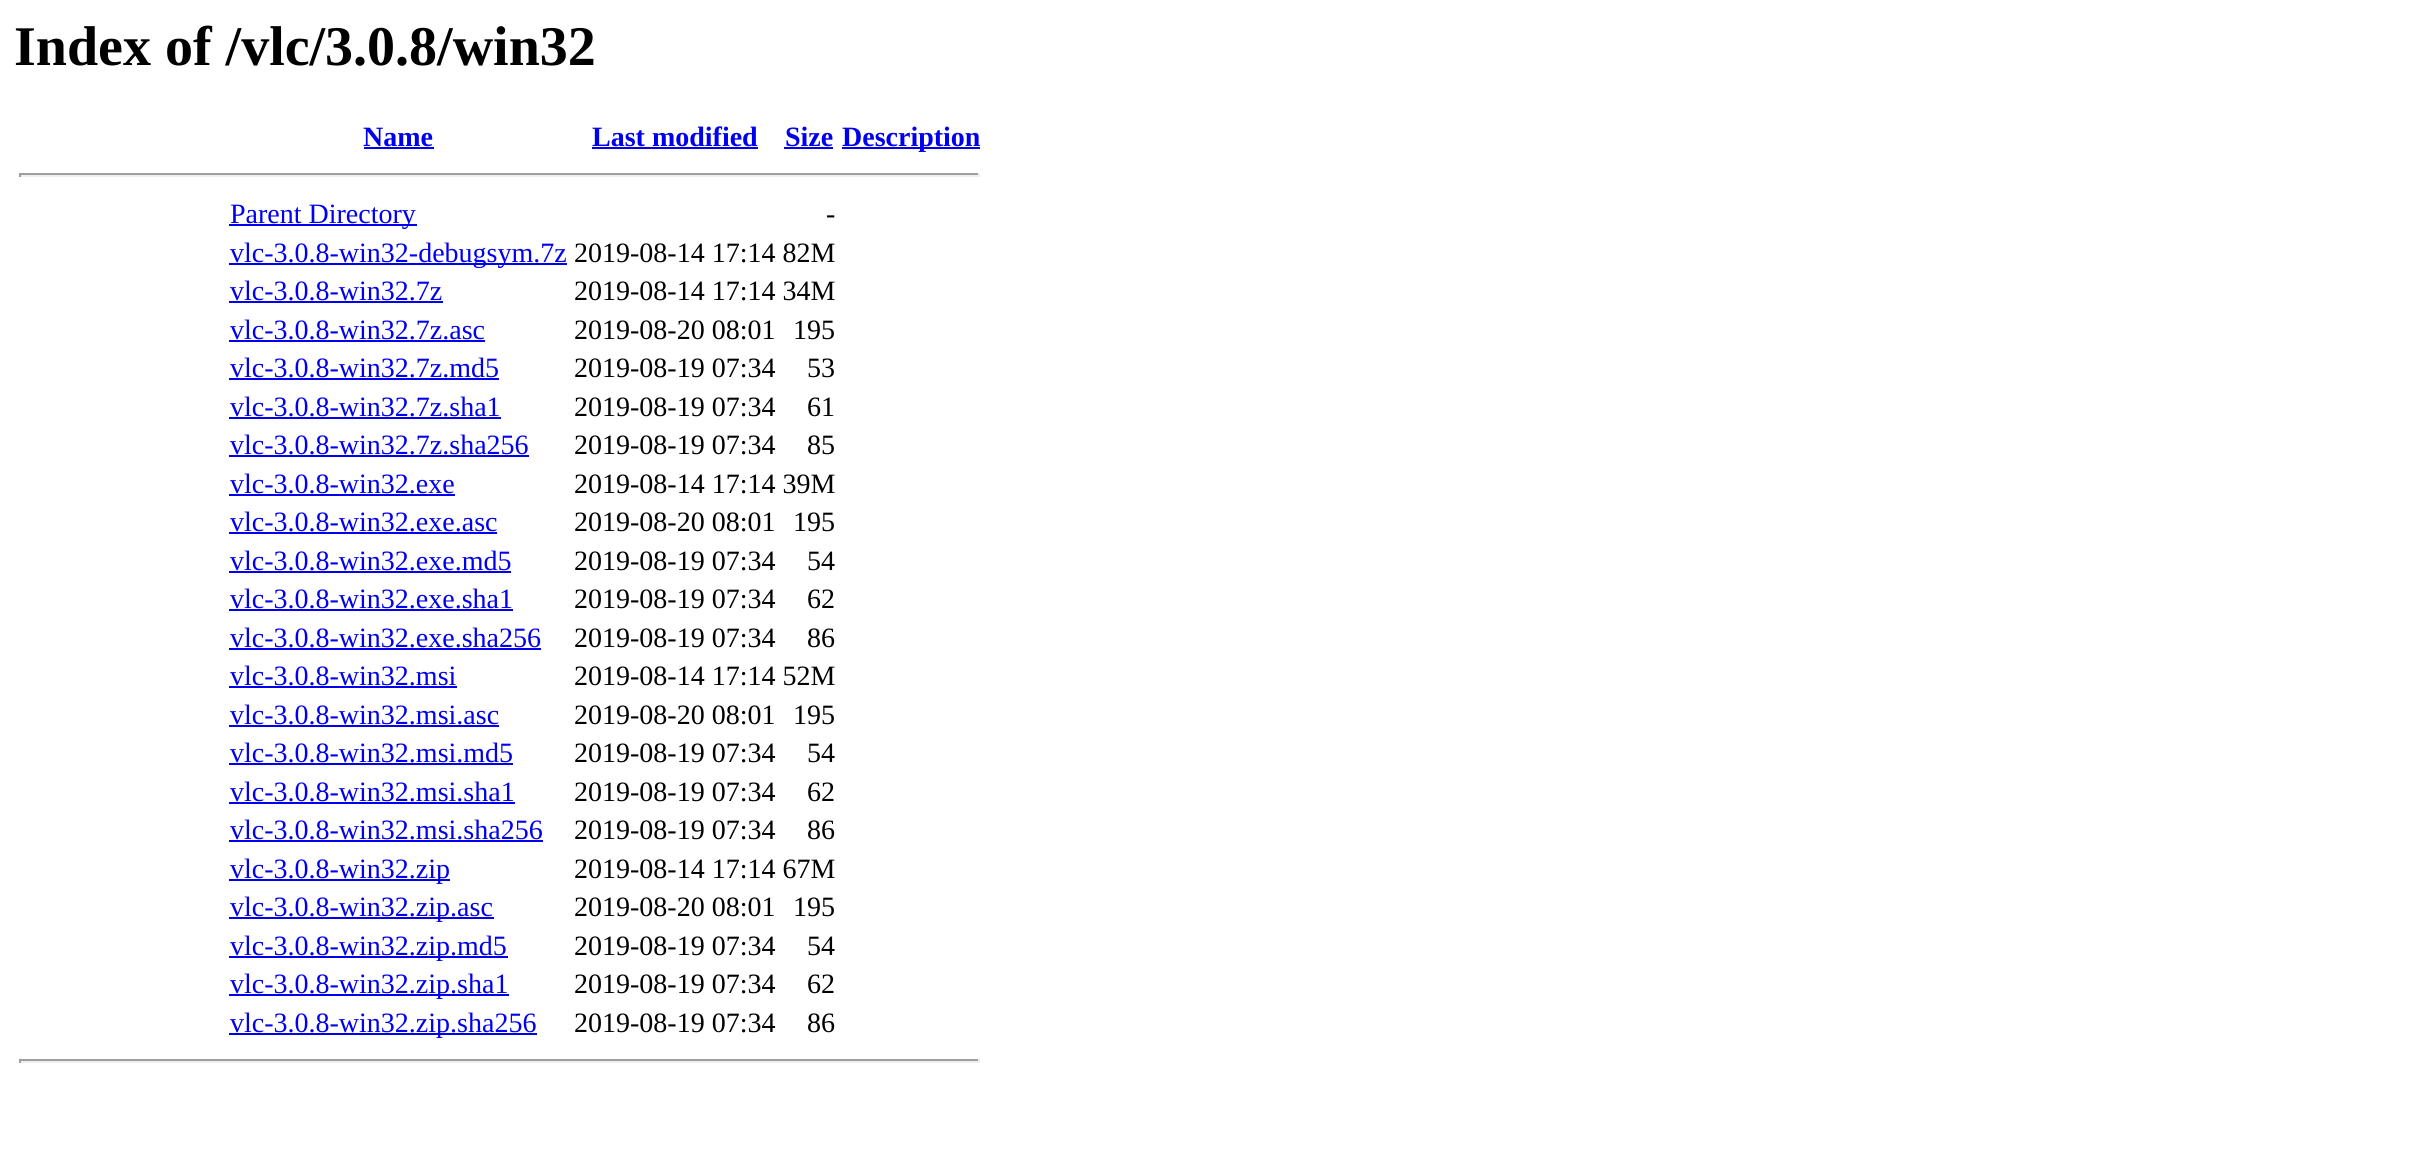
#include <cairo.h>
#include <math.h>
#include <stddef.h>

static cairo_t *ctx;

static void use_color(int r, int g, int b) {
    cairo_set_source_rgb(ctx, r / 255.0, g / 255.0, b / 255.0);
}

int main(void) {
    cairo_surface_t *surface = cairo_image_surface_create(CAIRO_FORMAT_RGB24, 2411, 1166);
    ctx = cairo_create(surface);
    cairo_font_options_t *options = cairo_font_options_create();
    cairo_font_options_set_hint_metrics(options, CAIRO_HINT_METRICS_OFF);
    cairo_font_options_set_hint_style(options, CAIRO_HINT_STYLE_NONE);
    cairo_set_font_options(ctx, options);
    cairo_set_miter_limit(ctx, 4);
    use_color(255, 255, 255);
    cairo_paint(ctx);
    cairo_select_font_face(ctx, "Liberation Serif", CAIRO_FONT_SLANT_NORMAL, CAIRO_FONT_WEIGHT_BOLD);
    cairo_set_font_size(ctx, 56);
    use_color(0, 0, 0);
    cairo_move_to(ctx, 14, 65);
    cairo_show_text(ctx, "Index of /vlc/3.0.8/win32");
    cairo_set_font_size(ctx, 28);
    use_color(0, 0, 238);
    cairo_move_to(ctx, 363, 146);
    cairo_show_text(ctx, "Name");
    cairo_rectangle(ctx, 364, 147, 70, 2);
    cairo_fill(ctx);
    cairo_move_to(ctx, 592, 146);
    cairo_show_text(ctx, "Last modified");
    cairo_rectangle(ctx, 592, 147, 166, 2);
    cairo_fill(ctx);
    cairo_move_to(ctx, 785, 146);
    cairo_show_text(ctx, "Size");
    cairo_rectangle(ctx, 784, 147, 49, 2);
    cairo_fill(ctx);
    cairo_rectangle(ctx, 842, 147, 138, 2);
    cairo_fill(ctx);
    cairo_move_to(ctx, 842, 146);
    cairo_show_text(ctx, "Description");
    use_color(159, 159, 159);
    cairo_rectangle(ctx, 19, 173, 961, 2);
    cairo_fill(ctx);
    use_color(238, 238, 238);
    cairo_rectangle(ctx, 978, 173, 2, 4);
    cairo_fill(ctx);
    cairo_rectangle(ctx, 19, 175, 961, 2);
    cairo_fill(ctx);
    use_color(159, 159, 159);
    cairo_rectangle(ctx, 19, 173, 2, 4);
    cairo_fill(ctx);
    use_color(0, 0, 238);
    cairo_rectangle(ctx, 229, 224, 188, 2);
    cairo_fill(ctx);
    cairo_select_font_face(ctx, "Liberation Serif", CAIRO_FONT_SLANT_NORMAL, CAIRO_FONT_WEIGHT_NORMAL);
    cairo_move_to(ctx, 230, 223);
    cairo_show_text(ctx, "Parent Directory");
    use_color(0, 0, 0);
    cairo_move_to(ctx, 826, 223);
    cairo_show_text(ctx, "-");
    use_color(0, 0, 238);
    cairo_rectangle(ctx, 229, 263, 338, 2);
    cairo_fill(ctx);
    cairo_move_to(ctx, 230, 262);
    cairo_show_text(ctx, "vlc-3.0.8-win32-debugsym.7z");
    use_color(0, 0, 0);
    cairo_move_to(ctx, 574, 262);
    cairo_show_text(ctx, "2019-08-14 17:14 82M");
    use_color(0, 0, 238);
    cairo_move_to(ctx, 230, 300);
    cairo_show_text(ctx, "vlc-3.0.8-win32.7z");
    cairo_rectangle(ctx, 229, 301, 214, 2);
    cairo_fill(ctx);
    use_color(0, 0, 0);
    cairo_move_to(ctx, 574, 300);
    cairo_show_text(ctx, "2019-08-14 17:14 34M");
    use_color(0, 0, 238);
    cairo_move_to(ctx, 230, 339);
    cairo_show_text(ctx, "vlc-3.0.8-win32.7z.asc");
    cairo_rectangle(ctx, 229, 340, 256, 2);
    cairo_fill(ctx);
    use_color(0, 0, 0);
    cairo_move_to(ctx, 574, 339);
    cairo_show_text(ctx, "2019-08-20 08:01");
    cairo_move_to(ctx, 793, 339);
    cairo_show_text(ctx, "195");
    use_color(0, 0, 238);
    cairo_move_to(ctx, 230, 377);
    cairo_show_text(ctx, "vlc-3.0.8-win32.7z.md5");
    cairo_rectangle(ctx, 229, 378, 270, 2);
    cairo_fill(ctx);
    use_color(0, 0, 0);
    cairo_move_to(ctx, 574, 377);
    cairo_show_text(ctx, "2019-08-19 07:34");
    cairo_move_to(ctx, 807, 377);
    cairo_show_text(ctx, "53");
    use_color(0, 0, 238);
    cairo_move_to(ctx, 230, 416);
    cairo_show_text(ctx, "vlc-3.0.8-win32.7z.sha1");
    cairo_rectangle(ctx, 229, 417, 272, 2);
    cairo_fill(ctx);
    use_color(0, 0, 0);
    cairo_move_to(ctx, 574, 416);
    cairo_show_text(ctx, "2019-08-19 07:34");
    cairo_move_to(ctx, 807, 416);
    cairo_show_text(ctx, "61");
    use_color(0, 0, 238);
    cairo_move_to(ctx, 230, 454);
    cairo_show_text(ctx, "vlc-3.0.8-win32.7z.sha256");
    cairo_rectangle(ctx, 229, 455, 300, 2);
    cairo_fill(ctx);
    use_color(0, 0, 0);
    cairo_move_to(ctx, 574, 454);
    cairo_show_text(ctx, "2019-08-19 07:34");
    cairo_move_to(ctx, 807, 454);
    cairo_show_text(ctx, "85");
    use_color(0, 0, 238);
    cairo_move_to(ctx, 230, 493);
    cairo_show_text(ctx, "vlc-3.0.8-win32.exe");
    cairo_rectangle(ctx, 229, 494, 226, 2);
    cairo_fill(ctx);
    use_color(0, 0, 0);
    cairo_move_to(ctx, 574, 493);
    cairo_show_text(ctx, "2019-08-14 17:14 39M");
    use_color(0, 0, 238);
    cairo_move_to(ctx, 230, 531);
    cairo_show_text(ctx, "vlc-3.0.8-win32.exe.asc");
    cairo_rectangle(ctx, 229, 532, 268, 2);
    cairo_fill(ctx);
    use_color(0, 0, 0);
    cairo_move_to(ctx, 574, 531);
    cairo_show_text(ctx, "2019-08-20 08:01");
    cairo_move_to(ctx, 793, 531);
    cairo_show_text(ctx, "195");
    use_color(0, 0, 238);
    cairo_move_to(ctx, 230, 570);
    cairo_show_text(ctx, "vlc-3.0.8-win32.exe.md5");
    cairo_rectangle(ctx, 229, 571, 282, 2);
    cairo_fill(ctx);
    use_color(0, 0, 0);
    cairo_move_to(ctx, 574, 570);
    cairo_show_text(ctx, "2019-08-19 07:34");
    cairo_move_to(ctx, 807, 570);
    cairo_show_text(ctx, "54");
    use_color(0, 0, 238);
    cairo_move_to(ctx, 230, 608);
    cairo_show_text(ctx, "vlc-3.0.8-win32.exe.sha1");
    cairo_rectangle(ctx, 229, 609, 284, 2);
    cairo_fill(ctx);
    use_color(0, 0, 0);
    cairo_move_to(ctx, 574, 608);
    cairo_show_text(ctx, "2019-08-19 07:34");
    cairo_move_to(ctx, 807, 608);
    cairo_show_text(ctx, "62");
    use_color(0, 0, 238);
    cairo_move_to(ctx, 230, 647);
    cairo_show_text(ctx, "vlc-3.0.8-win32.exe.sha256");
    cairo_rectangle(ctx, 229, 648, 312, 2);
    cairo_fill(ctx);
    use_color(0, 0, 0);
    cairo_move_to(ctx, 574, 647);
    cairo_show_text(ctx, "2019-08-19 07:34");
    cairo_move_to(ctx, 807, 647);
    cairo_show_text(ctx, "86");
    use_color(0, 0, 238);
    cairo_move_to(ctx, 230, 685);
    cairo_show_text(ctx, "vlc-3.0.8-win32.msi");
    cairo_rectangle(ctx, 229, 686, 228, 2);
    cairo_fill(ctx);
    use_color(0, 0, 0);
    cairo_move_to(ctx, 574, 685);
    cairo_show_text(ctx, "2019-08-14 17:14 52M");
    use_color(0, 0, 238);
    cairo_move_to(ctx, 230, 724);
    cairo_show_text(ctx, "vlc-3.0.8-win32.msi.asc");
    cairo_rectangle(ctx, 229, 725, 270, 2);
    cairo_fill(ctx);
    use_color(0, 0, 0);
    cairo_move_to(ctx, 574, 724);
    cairo_show_text(ctx, "2019-08-20 08:01");
    cairo_move_to(ctx, 793, 724);
    cairo_show_text(ctx, "195");
    use_color(0, 0, 238);
    cairo_move_to(ctx, 230, 762);
    cairo_show_text(ctx, "vlc-3.0.8-win32.msi.md5");
    cairo_rectangle(ctx, 229, 763, 284, 2);
    cairo_fill(ctx);
    use_color(0, 0, 0);
    cairo_move_to(ctx, 574, 762);
    cairo_show_text(ctx, "2019-08-19 07:34");
    cairo_move_to(ctx, 807, 762);
    cairo_show_text(ctx, "54");
    use_color(0, 0, 238);
    cairo_move_to(ctx, 230, 801);
    cairo_show_text(ctx, "vlc-3.0.8-win32.msi.sha1");
    cairo_rectangle(ctx, 229, 802, 286, 2);
    cairo_fill(ctx);
    use_color(0, 0, 0);
    cairo_move_to(ctx, 574, 801);
    cairo_show_text(ctx, "2019-08-19 07:34");
    cairo_move_to(ctx, 807, 801);
    cairo_show_text(ctx, "62");
    use_color(0, 0, 238);
    cairo_move_to(ctx, 230, 839);
    cairo_show_text(ctx, "vlc-3.0.8-win32.msi.sha256");
    cairo_rectangle(ctx, 229, 840, 314, 2);
    cairo_fill(ctx);
    use_color(0, 0, 0);
    cairo_move_to(ctx, 574, 839);
    cairo_show_text(ctx, "2019-08-19 07:34");
    cairo_move_to(ctx, 807, 839);
    cairo_show_text(ctx, "86");
    use_color(0, 0, 238);
    cairo_rectangle(ctx, 229, 879, 221, 2);
    cairo_fill(ctx);
    cairo_move_to(ctx, 230, 878);
    cairo_show_text(ctx, "vlc-3.0.8-win32.zip");
    use_color(0, 0, 0);
    cairo_move_to(ctx, 574, 878);
    cairo_show_text(ctx, "2019-08-14 17:14 67M");
    use_color(0, 0, 238);
    cairo_rectangle(ctx, 229, 917, 265, 2);
    cairo_fill(ctx);
    cairo_move_to(ctx, 230, 916);
    cairo_show_text(ctx, "vlc-3.0.8-win32.zip.asc");
    use_color(0, 0, 0);
    cairo_move_to(ctx, 574, 916);
    cairo_show_text(ctx, "2019-08-20 08:01");
    cairo_move_to(ctx, 793, 916);
    cairo_show_text(ctx, "195");
    use_color(0, 0, 238);
    cairo_rectangle(ctx, 229, 956, 279, 2);
    cairo_fill(ctx);
    cairo_move_to(ctx, 230, 955);
    cairo_show_text(ctx, "vlc-3.0.8-win32.zip.md5");
    use_color(0, 0, 0);
    cairo_move_to(ctx, 574, 955);
    cairo_show_text(ctx, "2019-08-19 07:34");
    cairo_move_to(ctx, 807, 955);
    cairo_show_text(ctx, "54");
    use_color(0, 0, 238);
    cairo_rectangle(ctx, 229, 994, 280, 2);
    cairo_fill(ctx);
    cairo_move_to(ctx, 230, 993);
    cairo_show_text(ctx, "vlc-3.0.8-win32.zip.sha1");
    use_color(0, 0, 0);
    cairo_move_to(ctx, 574, 993);
    cairo_show_text(ctx, "2019-08-19 07:34");
    cairo_move_to(ctx, 807, 993);
    cairo_show_text(ctx, "62");
    use_color(0, 0, 238);
    cairo_rectangle(ctx, 229, 1033, 308, 2);
    cairo_fill(ctx);
    cairo_move_to(ctx, 230, 1032);
    cairo_show_text(ctx, "vlc-3.0.8-win32.zip.sha256");
    use_color(0, 0, 0);
    cairo_move_to(ctx, 574, 1032);
    cairo_show_text(ctx, "2019-08-19 07:34");
    cairo_move_to(ctx, 807, 1032);
    cairo_show_text(ctx, "86");
    use_color(159, 159, 159);
    cairo_rectangle(ctx, 19, 1059, 961, 2);
    cairo_fill(ctx);
    use_color(238, 238, 238);
    cairo_rectangle(ctx, 978, 1059, 2, 4);
    cairo_fill(ctx);
    cairo_rectangle(ctx, 19, 1061, 961, 2);
    cairo_fill(ctx);
    use_color(159, 159, 159);
    cairo_rectangle(ctx, 19, 1059, 2, 4);
    cairo_fill(ctx);
    cairo_surface_write_to_png(surface, "result.png");
    cairo_font_options_destroy(options);
    cairo_destroy(ctx);
    cairo_surface_destroy(surface);
    return 0;
}
